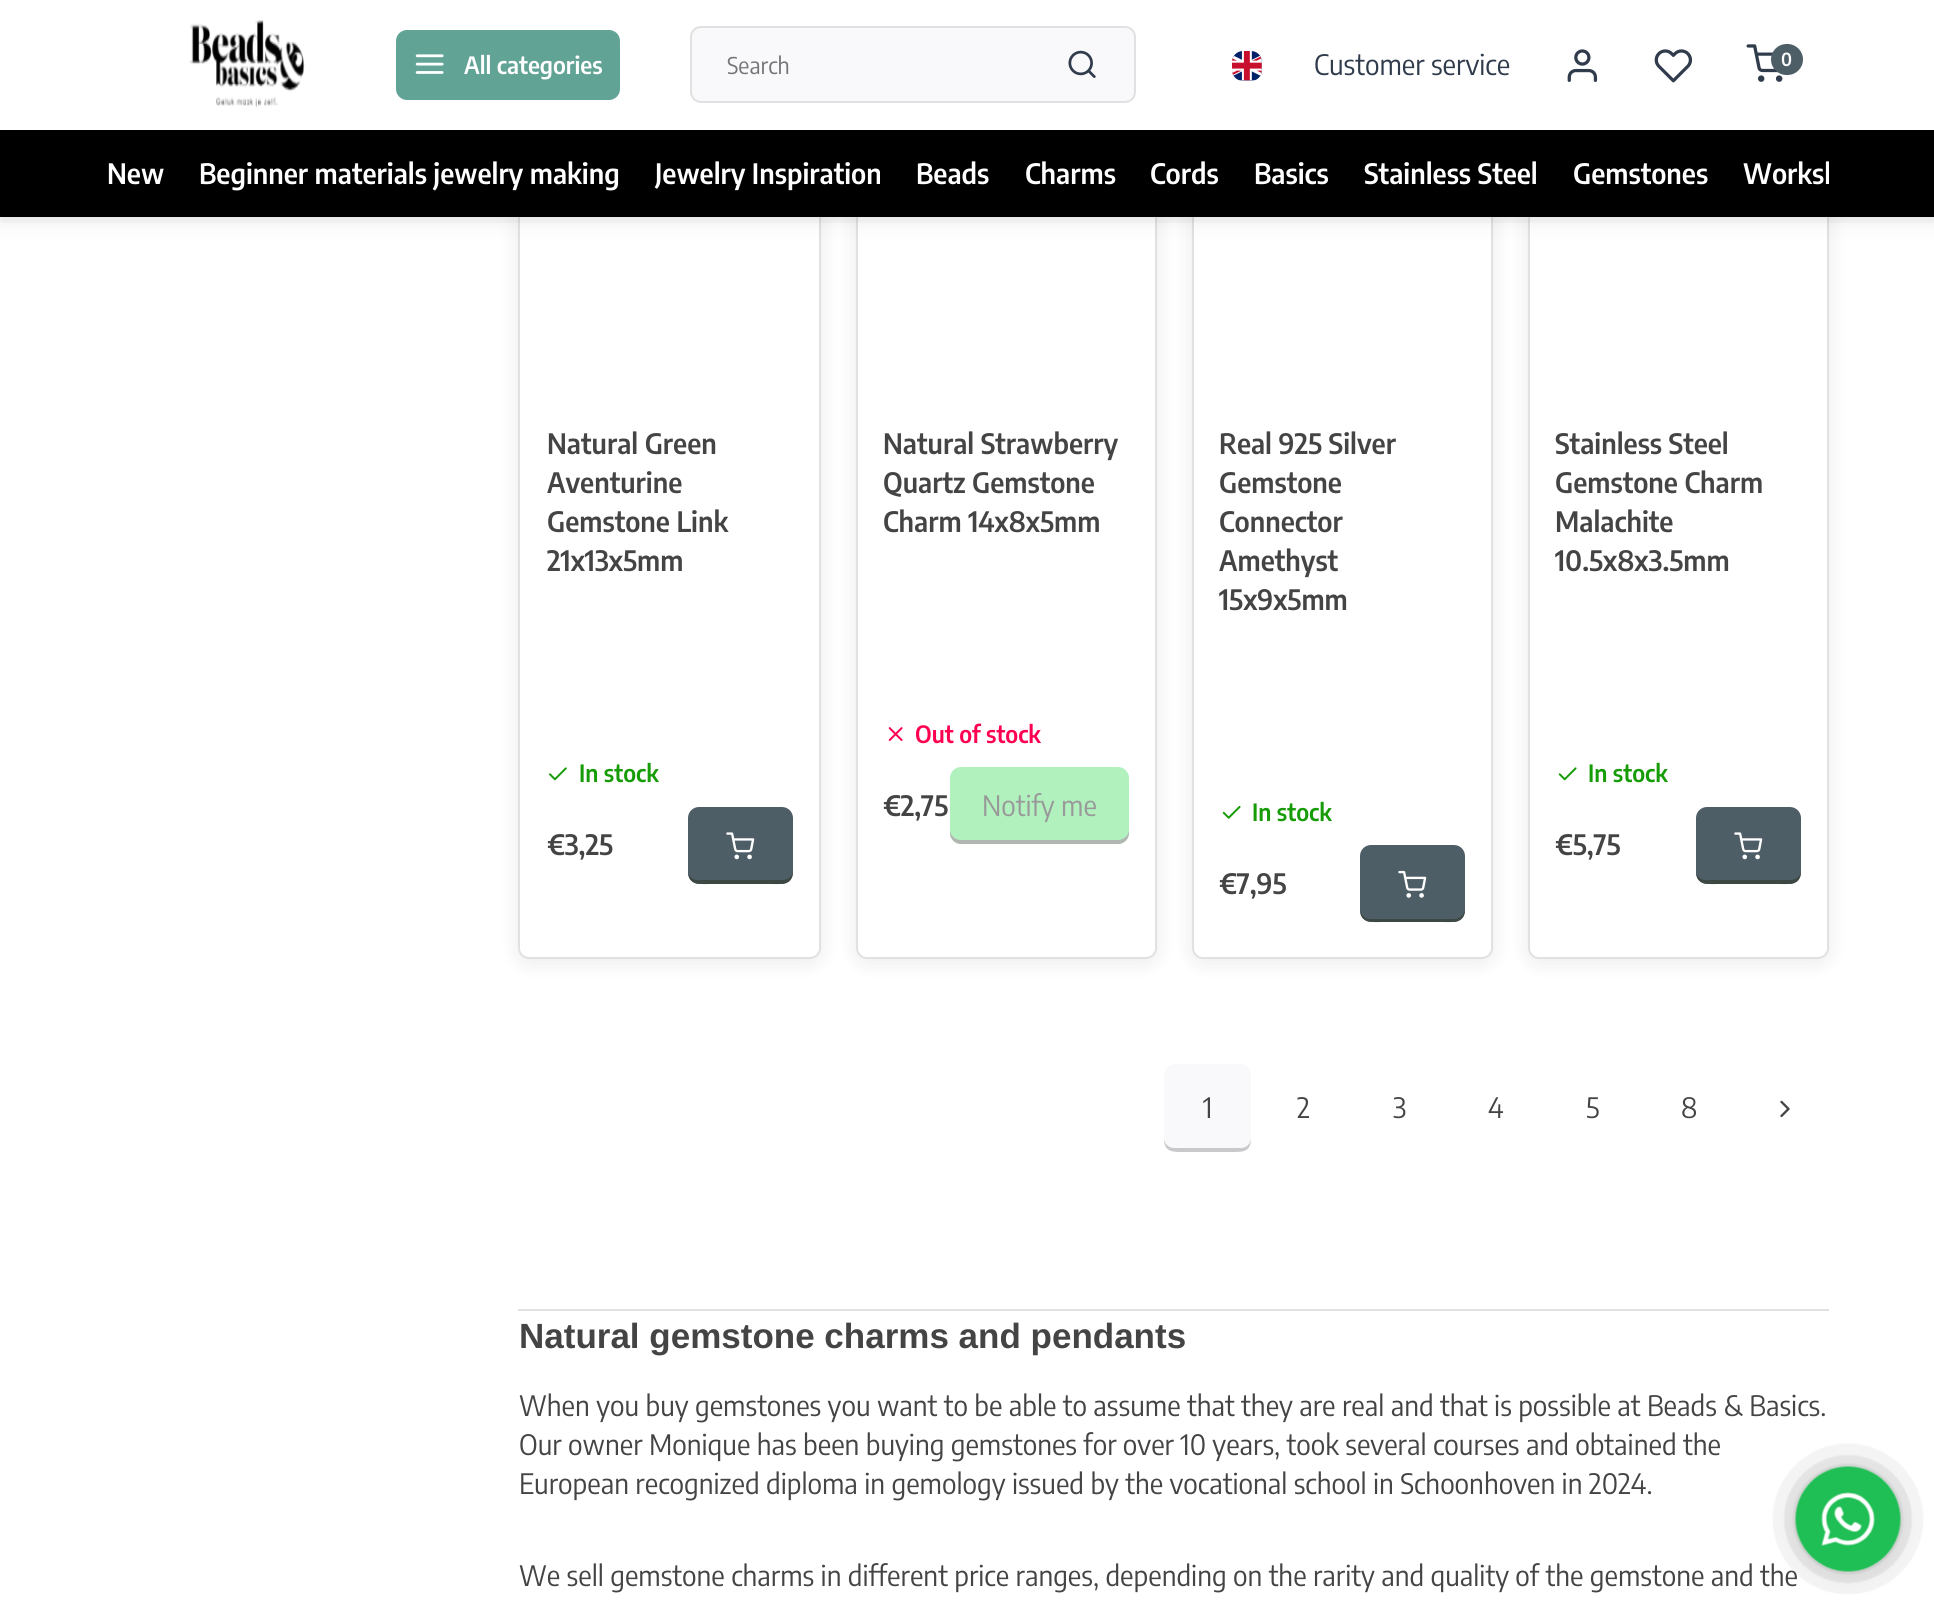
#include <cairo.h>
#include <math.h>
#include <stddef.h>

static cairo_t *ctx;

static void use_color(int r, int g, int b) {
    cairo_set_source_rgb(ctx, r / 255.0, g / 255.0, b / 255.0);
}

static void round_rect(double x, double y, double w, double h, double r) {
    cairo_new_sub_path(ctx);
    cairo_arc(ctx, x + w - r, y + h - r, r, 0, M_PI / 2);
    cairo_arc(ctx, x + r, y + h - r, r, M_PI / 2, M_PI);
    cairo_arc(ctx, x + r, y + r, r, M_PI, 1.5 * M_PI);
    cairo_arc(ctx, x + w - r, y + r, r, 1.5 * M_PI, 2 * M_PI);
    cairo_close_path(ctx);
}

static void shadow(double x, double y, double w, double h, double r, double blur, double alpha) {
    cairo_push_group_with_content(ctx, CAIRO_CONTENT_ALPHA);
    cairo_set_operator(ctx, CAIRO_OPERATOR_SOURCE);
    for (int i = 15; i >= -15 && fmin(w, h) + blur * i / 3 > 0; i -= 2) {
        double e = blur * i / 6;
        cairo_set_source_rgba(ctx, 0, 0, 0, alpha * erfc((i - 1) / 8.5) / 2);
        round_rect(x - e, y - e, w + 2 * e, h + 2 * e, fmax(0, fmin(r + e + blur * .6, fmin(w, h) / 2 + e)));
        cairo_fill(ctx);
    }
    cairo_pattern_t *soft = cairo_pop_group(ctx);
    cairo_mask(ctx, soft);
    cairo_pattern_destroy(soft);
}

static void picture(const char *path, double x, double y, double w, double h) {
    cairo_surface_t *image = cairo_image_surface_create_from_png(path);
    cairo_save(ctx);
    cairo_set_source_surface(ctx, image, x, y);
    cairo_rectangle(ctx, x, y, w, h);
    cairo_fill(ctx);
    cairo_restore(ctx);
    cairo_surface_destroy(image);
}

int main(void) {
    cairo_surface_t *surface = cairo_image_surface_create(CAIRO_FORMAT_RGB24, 1934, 1605);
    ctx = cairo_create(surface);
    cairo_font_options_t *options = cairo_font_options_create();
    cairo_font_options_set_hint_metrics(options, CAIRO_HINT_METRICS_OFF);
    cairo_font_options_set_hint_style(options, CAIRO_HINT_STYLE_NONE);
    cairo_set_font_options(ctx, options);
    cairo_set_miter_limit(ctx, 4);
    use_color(255, 255, 255);
    cairo_paint(ctx);
    use_color(0, 0, 0);
    shadow(518, 49, 303, 914, 11, 10.5, 0.08);
    use_color(255, 255, 255);
    round_rect(519, 47, 301, 911, 10);
    cairo_fill_preserve(ctx);
    use_color(225, 225, 225);
    cairo_stroke(ctx);
    use_color(0, 0, 0);
    shadow(856, 49, 301, 914, 11, 10.5, 0.08);
    use_color(255, 255, 255);
    round_rect(857, 47, 299, 911, 10);
    cairo_fill_preserve(ctx);
    use_color(225, 225, 225);
    cairo_stroke(ctx);
    use_color(0, 0, 0);
    shadow(1192, 49, 301, 914, 11, 10.5, 0.08);
    use_color(255, 255, 255);
    round_rect(1193, 47, 299, 911, 10);
    cairo_fill_preserve(ctx);
    use_color(225, 225, 225);
    cairo_stroke(ctx);
    use_color(0, 0, 0);
    shadow(1528, 49, 301, 914, 11, 10.5, 0.08);
    use_color(255, 255, 255);
    round_rect(1529, 47, 299, 911, 10);
    cairo_fill_preserve(ctx);
    use_color(225, 225, 225);
    cairo_stroke(ctx);
    use_color(0, 0, 0);
    shadow(0, 9, 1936, 217, 0, 9, 0.05);
    use_color(255, 255, 255);
    cairo_rectangle(ctx, 0, 1, 1934, 129);
    cairo_fill(ctx);
    cairo_save(ctx);
    cairo_rectangle(ctx, 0, 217, 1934, 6);
    cairo_clip(ctx);
    use_color(0, 0, 0);
    shadow(0, 5, 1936, 217, 0, 3.5, 0.05);
    cairo_restore(ctx);
    picture("img1.png", 189, 20, 116, 88);
    use_color(97, 163, 149);
    round_rect(396, 30, 224, 70, 11);
    cairo_fill(ctx);
    picture("img2.png", 415, 54, 29, 20);
    cairo_select_font_face(ctx, "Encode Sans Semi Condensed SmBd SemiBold", CAIRO_FONT_SLANT_NORMAL, CAIRO_FONT_WEIGHT_NORMAL);
    cairo_set_font_size(ctx, 23.75);
    use_color(255, 255, 255);
    cairo_move_to(ctx, 464, 74);
    cairo_show_text(ctx, "All categories");
    use_color(249, 249, 251);
    round_rect(691, 27, 444, 75, 10);
    cairo_fill_preserve(ctx);
    use_color(225, 225, 225);
    cairo_stroke(ctx);
    cairo_select_font_face(ctx, "Encode Sans Semi Condensed", CAIRO_FONT_SLANT_NORMAL, CAIRO_FONT_WEIGHT_NORMAL);
    cairo_set_font_size(ctx, 23);
    use_color(117, 117, 117);
    cairo_move_to(ctx, 727, 74);
    cairo_show_text(ctx, "Search");
    picture("img3.png", 1068, 50, 28, 28);
    picture("img4.png", 1232, 51, 30, 30);
    cairo_set_font_size(ctx, 28);
    use_color(48, 59, 76);
    cairo_move_to(ctx, 1314, 75);
    cairo_show_text(ctx, "Customer service");
    picture("img5.png", 1567, 49, 31, 33);
    picture("img6.png", 1654, 49, 39, 34);
    picture("img7.png", 1746, 44, 37, 38);
    use_color(78, 94, 103);
    round_rect(1771, 44, 32, 31, 15.5);
    cairo_fill(ctx);
    cairo_select_font_face(ctx, "Encode Sans Semi Condensed SmBd SemiBold", CAIRO_FONT_SLANT_NORMAL, CAIRO_FONT_WEIGHT_NORMAL);
    cairo_set_font_size(ctx, 18);
    use_color(255, 255, 255);
    cairo_move_to(ctx, 1781, 66);
    cairo_show_text(ctx, "0");
    use_color(0, 0, 0);
    cairo_rectangle(ctx, 0, 130, 1934, 87);
    cairo_fill(ctx);
    cairo_set_font_size(ctx, 28);
    use_color(255, 255, 255);
    cairo_move_to(ctx, 107, 184);
    cairo_show_text(ctx, "New");
    cairo_move_to(ctx, 199, 184);
    cairo_show_text(ctx, "Beginner materials jewelry making");
    cairo_move_to(ctx, 655, 184);
    cairo_show_text(ctx, "Jewelry Inspiration");
    cairo_move_to(ctx, 916, 184);
    cairo_show_text(ctx, "Beads");
    cairo_move_to(ctx, 1025, 184);
    cairo_show_text(ctx, "Charms");
    cairo_move_to(ctx, 1150, 184);
    cairo_show_text(ctx, "Cords");
    cairo_move_to(ctx, 1254, 184);
    cairo_show_text(ctx, "Basics");
    cairo_move_to(ctx, 1364, 184);
    cairo_show_text(ctx, "Stainless Steel");
    cairo_move_to(ctx, 1573, 184);
    cairo_show_text(ctx, "Gemstones");
    cairo_save(ctx);
    cairo_rectangle(ctx, 107, 130, 1722, 87);
    cairo_clip(ctx);
    cairo_move_to(ctx, 1743, 184);
    cairo_show_text(ctx, "Worksh");
    cairo_restore(ctx);
    use_color(68, 68, 68);
    cairo_move_to(ctx, 547, 454);
    cairo_show_text(ctx, "Natural Green");
    cairo_move_to(ctx, 547, 493);
    cairo_show_text(ctx, "Aventurine");
    cairo_move_to(ctx, 547, 532);
    cairo_show_text(ctx, "Gemstone Link");
    cairo_move_to(ctx, 547, 571);
    cairo_show_text(ctx, "21x13x5mm");
    picture("img8.png", 549, 767, 18, 14);
    cairo_set_font_size(ctx, 23.75);
    use_color(21, 156, 6);
    cairo_move_to(ctx, 579, 782);
    cairo_show_text(ctx, "In stock");
    cairo_set_font_size(ctx, 28);
    use_color(68, 68, 68);
    cairo_move_to(ctx, 547, 855);
    cairo_show_text(ctx, "€3,25");
    use_color(78, 94, 103);
    round_rect(688, 807, 105, 77, 11);
    cairo_fill(ctx);
    use_color(62, 72, 66);
    cairo_new_path(ctx);
    cairo_move_to(ctx, 688, 870);
    cairo_curve_to(ctx, 688, 886, 699, 884, 713, 884);
    cairo_line_to(ctx, 768, 884);
    cairo_curve_to(ctx, 782, 884, 793, 886, 793, 870);
    cairo_curve_to(ctx, 793, 876, 788, 880, 782, 880);
    cairo_line_to(ctx, 698, 880);
    cairo_curve_to(ctx, 692, 880, 688, 876, 688, 870);
    cairo_close_path(ctx);
    cairo_fill(ctx);
    picture("img9.png", 726, 832, 29, 28);
    use_color(68, 68, 68);
    cairo_move_to(ctx, 883, 454);
    cairo_show_text(ctx, "Natural Strawberry");
    cairo_move_to(ctx, 883, 493);
    cairo_show_text(ctx, "Quartz Gemstone");
    cairo_move_to(ctx, 883, 532);
    cairo_show_text(ctx, "Charm 14x8x5mm");
    picture("img10.png", 888, 727, 15, 14);
    cairo_set_font_size(ctx, 23.75);
    use_color(255, 0, 80);
    cairo_move_to(ctx, 915, 743);
    cairo_show_text(ctx, "Out of stock");
    cairo_set_font_size(ctx, 28);
    use_color(68, 68, 68);
    cairo_move_to(ctx, 883, 816);
    cairo_show_text(ctx, "€2,75");
    use_color(177, 241, 190);
    round_rect(950, 767, 179, 77, 11);
    cairo_fill(ctx);
    use_color(178, 182, 179);
    cairo_new_path(ctx);
    cairo_move_to(ctx, 950, 830);
    cairo_line_to(ctx, 950, 833);
    cairo_curve_to(ctx, 950, 839, 955, 844, 961, 844);
    cairo_line_to(ctx, 1118, 844);
    cairo_curve_to(ctx, 1124, 844, 1129, 839, 1129, 833);
    cairo_line_to(ctx, 1129, 830);
    cairo_curve_to(ctx, 1129, 835, 1124, 840, 1118, 840);
    cairo_line_to(ctx, 961, 840);
    cairo_curve_to(ctx, 955, 840, 950, 835, 950, 830);
    cairo_close_path(ctx);
    cairo_fill(ctx);
    cairo_select_font_face(ctx, "Encode Sans Semi Condensed", CAIRO_FONT_SLANT_NORMAL, CAIRO_FONT_WEIGHT_NORMAL);
    use_color(153, 153, 153);
    cairo_move_to(ctx, 982, 816);
    cairo_show_text(ctx, "Notify me");
    cairo_select_font_face(ctx, "Encode Sans Semi Condensed SmBd SemiBold", CAIRO_FONT_SLANT_NORMAL, CAIRO_FONT_WEIGHT_NORMAL);
    use_color(68, 68, 68);
    cairo_move_to(ctx, 1219, 454);
    cairo_show_text(ctx, "Real 925 Silver");
    cairo_move_to(ctx, 1219, 493);
    cairo_show_text(ctx, "Gemstone");
    cairo_move_to(ctx, 1219, 532);
    cairo_show_text(ctx, "Connector");
    cairo_move_to(ctx, 1219, 571);
    cairo_show_text(ctx, "Amethyst");
    cairo_move_to(ctx, 1219, 610);
    cairo_show_text(ctx, "15x9x5mm");
    picture("img11.png", 1222, 805, 19, 14);
    cairo_set_font_size(ctx, 23.75);
    use_color(21, 156, 6);
    cairo_move_to(ctx, 1252, 821);
    cairo_show_text(ctx, "In stock");
    cairo_set_font_size(ctx, 28);
    use_color(68, 68, 68);
    cairo_move_to(ctx, 1219, 894);
    cairo_show_text(ctx, "€7,95");
    use_color(78, 94, 103);
    round_rect(1360, 845, 105, 77, 11);
    cairo_fill(ctx);
    use_color(62, 72, 66);
    cairo_new_path(ctx);
    cairo_move_to(ctx, 1360, 908);
    cairo_curve_to(ctx, 1360, 924, 1371, 922, 1385, 922);
    cairo_line_to(ctx, 1440, 922);
    cairo_curve_to(ctx, 1454, 922, 1465, 924, 1465, 908);
    cairo_curve_to(ctx, 1465, 914, 1460, 919, 1454, 919);
    cairo_line_to(ctx, 1370, 919);
    cairo_curve_to(ctx, 1364, 919, 1360, 914, 1360, 908);
    cairo_close_path(ctx);
    cairo_fill(ctx);
    picture("img12.png", 1398, 870, 29, 28);
    use_color(68, 68, 68);
    cairo_move_to(ctx, 1555, 454);
    cairo_show_text(ctx, "Stainless Steel");
    cairo_move_to(ctx, 1555, 493);
    cairo_show_text(ctx, "Gemstone Charm");
    cairo_move_to(ctx, 1555, 532);
    cairo_show_text(ctx, "Malachite");
    cairo_move_to(ctx, 1555, 571);
    cairo_show_text(ctx, "10.5x8x3.5mm");
    picture("img13.png", 1558, 767, 19, 14);
    cairo_set_font_size(ctx, 23.75);
    use_color(21, 156, 6);
    cairo_move_to(ctx, 1588, 782);
    cairo_show_text(ctx, "In stock");
    cairo_set_font_size(ctx, 28);
    use_color(68, 68, 68);
    cairo_move_to(ctx, 1555, 855);
    cairo_show_text(ctx, "€5,75");
    use_color(78, 94, 103);
    round_rect(1696, 807, 105, 77, 11);
    cairo_fill(ctx);
    use_color(62, 72, 66);
    cairo_new_path(ctx);
    cairo_move_to(ctx, 1696, 870);
    cairo_curve_to(ctx, 1696, 886, 1707, 884, 1721, 884);
    cairo_line_to(ctx, 1776, 884);
    cairo_curve_to(ctx, 1790, 884, 1801, 886, 1801, 870);
    cairo_curve_to(ctx, 1801, 876, 1796, 880, 1790, 880);
    cairo_line_to(ctx, 1706, 880);
    cairo_curve_to(ctx, 1700, 880, 1696, 876, 1696, 870);
    cairo_close_path(ctx);
    cairo_fill(ctx);
    picture("img9.png", 1734, 832, 29, 28);
    use_color(249, 249, 251);
    round_rect(1164, 1064, 87, 88, 11);
    cairo_fill(ctx);
    use_color(201, 201, 203);
    cairo_new_path(ctx);
    cairo_move_to(ctx, 1164, 1138);
    cairo_curve_to(ctx, 1164, 1153, 1173, 1152, 1186, 1152);
    cairo_line_to(ctx, 1229, 1152);
    cairo_curve_to(ctx, 1242, 1152, 1251, 1153, 1251, 1138);
    cairo_curve_to(ctx, 1251, 1143, 1247, 1148, 1241, 1148);
    cairo_line_to(ctx, 1174, 1148);
    cairo_curve_to(ctx, 1168, 1148, 1164, 1143, 1164, 1138);
    cairo_close_path(ctx);
    cairo_fill(ctx);
    cairo_select_font_face(ctx, "Encode Sans Semi Condensed", CAIRO_FONT_SLANT_NORMAL, CAIRO_FONT_WEIGHT_NORMAL);
    use_color(68, 68, 68);
    cairo_move_to(ctx, 1203, 1118);
    cairo_show_text(ctx, "1");
    cairo_move_to(ctx, 1297, 1118);
    cairo_show_text(ctx, "2");
    cairo_move_to(ctx, 1393, 1118);
    cairo_show_text(ctx, "3");
    cairo_move_to(ctx, 1488, 1118);
    cairo_show_text(ctx, "4");
    cairo_move_to(ctx, 1586, 1118);
    cairo_show_text(ctx, "5");
    cairo_move_to(ctx, 1681, 1118);
    cairo_show_text(ctx, "8");
    picture("img14.png", 1780, 1100, 10, 18);
    use_color(225, 225, 225);
    cairo_rectangle(ctx, 518, 1309, 1311, 2);
    cairo_fill(ctx);
    cairo_select_font_face(ctx, "Liberation Sans", CAIRO_FONT_SLANT_NORMAL, CAIRO_FONT_WEIGHT_BOLD);
    cairo_set_font_size(ctx, 35);
    use_color(68, 68, 68);
    cairo_move_to(ctx, 519, 1348);
    cairo_show_text(ctx, "Natural gemstone charms and pendants");
    cairo_select_font_face(ctx, "Encode Sans Semi Condensed", CAIRO_FONT_SLANT_NORMAL, CAIRO_FONT_WEIGHT_NORMAL);
    cairo_set_font_size(ctx, 28);
    cairo_move_to(ctx, 519, 1416);
    cairo_show_text(ctx, "When you buy gemstones you want to be able to assume that they are real and that is possible at Beads & Basics.");
    cairo_move_to(ctx, 519, 1455);
    cairo_show_text(ctx, "Our owner Monique has been buying gemstones for over 10 years, took several courses and obtained the");
    cairo_move_to(ctx, 519, 1494);
    cairo_show_text(ctx, "European recognized diploma in gemology issued by the vocational school in Schoonhoven in 2024.");
    cairo_move_to(ctx, 519, 1586);
    cairo_show_text(ctx, "We sell gemstone charms in different price ranges, depending on the rarity and quality of the gemstone and the");
    picture("img15.png", 1772, 1443, 152, 152);
    cairo_surface_write_to_png(surface, "result.png");
    cairo_font_options_destroy(options);
    cairo_destroy(ctx);
    cairo_surface_destroy(surface);
    return 0;
}
